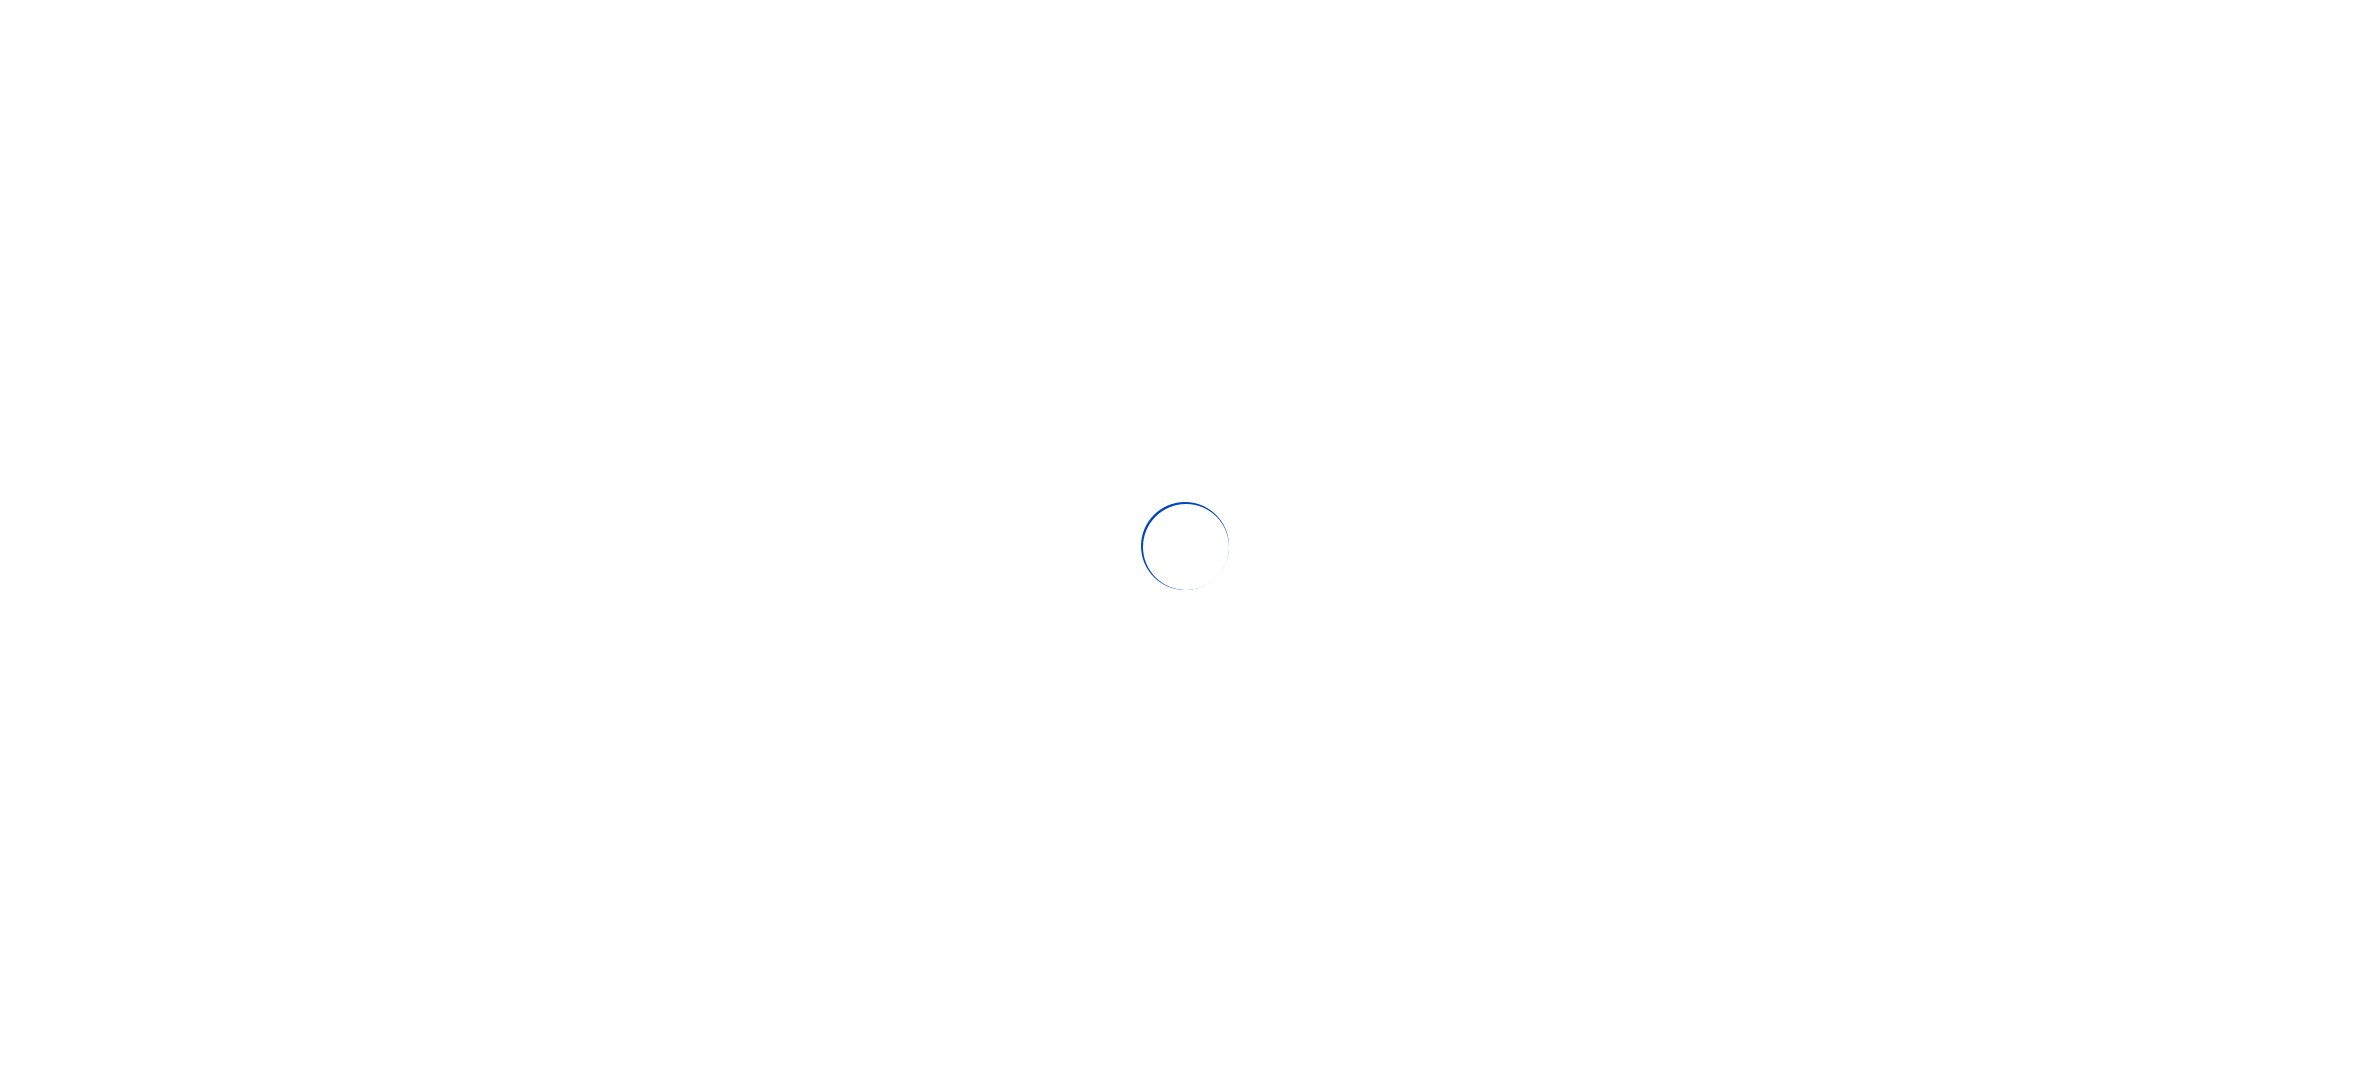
#include <cairo.h>
#include <math.h>
#include <stddef.h>

static cairo_t *ctx;

static void use_color(int r, int g, int b) {
    cairo_set_source_rgb(ctx, r / 255.0, g / 255.0, b / 255.0);
}

int main(void) {
    cairo_surface_t *surface = cairo_image_surface_create(CAIRO_FORMAT_RGB24, 2369, 1092);
    ctx = cairo_create(surface);
    cairo_font_options_t *options = cairo_font_options_create();
    cairo_font_options_set_hint_metrics(options, CAIRO_HINT_METRICS_OFF);
    cairo_font_options_set_hint_style(options, CAIRO_HINT_STYLE_NONE);
    cairo_set_font_options(ctx, options);
    cairo_set_miter_limit(ctx, 4);
    use_color(255, 255, 255);
    cairo_paint(ctx);
    use_color(3, 69, 191);
    cairo_arc(ctx, 1185, 546, 44, 0, 2 * M_PI);
    cairo_fill(ctx);
    use_color(255, 255, 255);
    cairo_arc(ctx, 1186, 547, 43, 0, 2 * M_PI);
    cairo_fill(ctx);
    cairo_surface_write_to_png(surface, "result.png");
    cairo_font_options_destroy(options);
    cairo_destroy(ctx);
    cairo_surface_destroy(surface);
    return 0;
}
